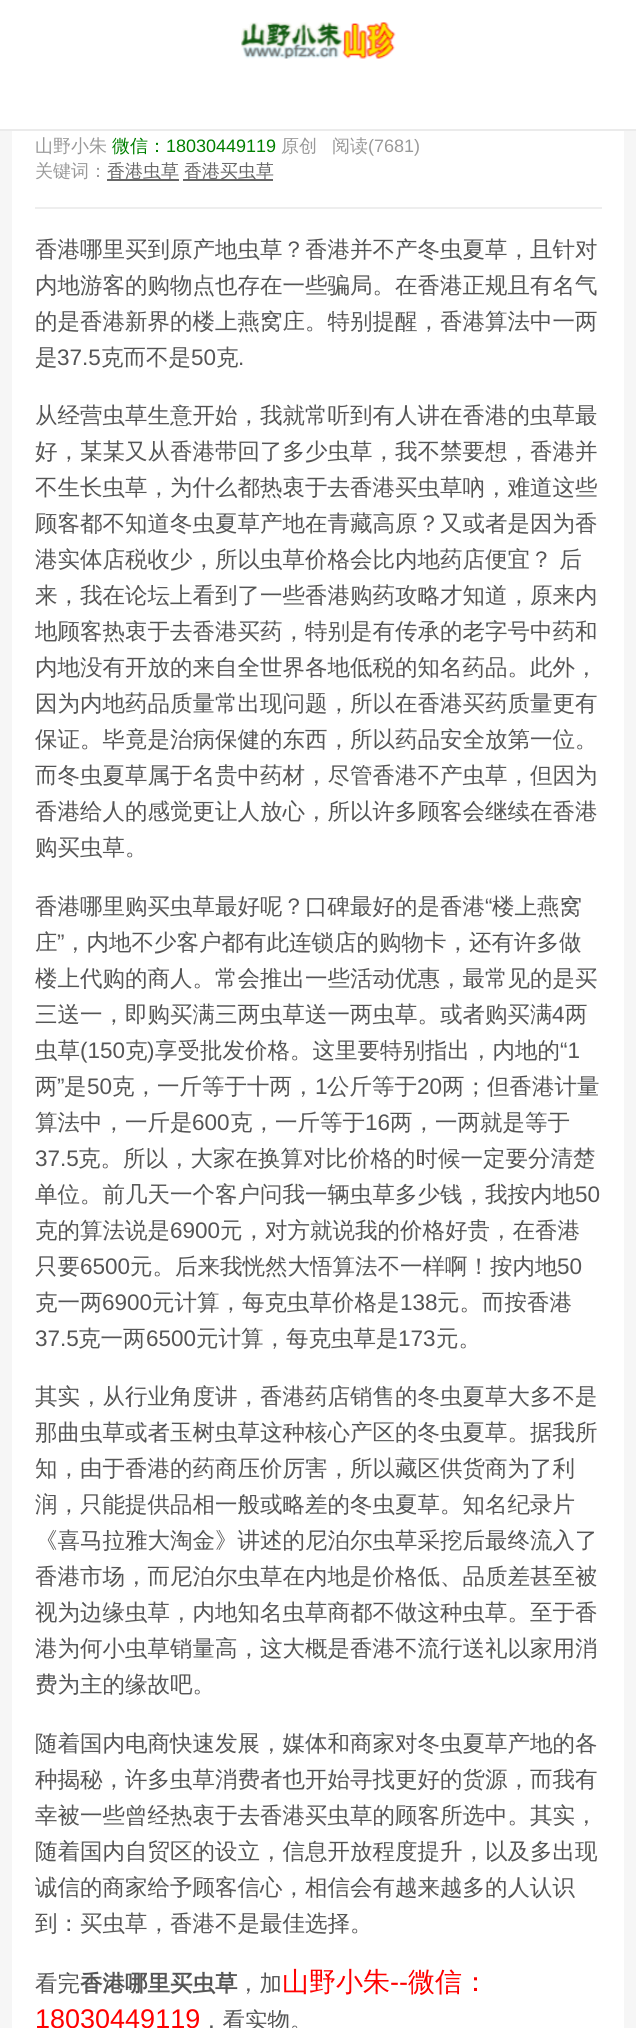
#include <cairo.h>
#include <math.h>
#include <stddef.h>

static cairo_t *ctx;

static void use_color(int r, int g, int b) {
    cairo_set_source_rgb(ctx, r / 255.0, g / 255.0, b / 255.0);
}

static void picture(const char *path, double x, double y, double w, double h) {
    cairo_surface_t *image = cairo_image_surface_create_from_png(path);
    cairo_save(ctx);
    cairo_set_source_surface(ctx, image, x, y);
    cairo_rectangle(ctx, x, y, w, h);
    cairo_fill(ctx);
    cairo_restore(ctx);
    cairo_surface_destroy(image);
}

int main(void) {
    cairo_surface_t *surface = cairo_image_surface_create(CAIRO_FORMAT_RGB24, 636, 2028);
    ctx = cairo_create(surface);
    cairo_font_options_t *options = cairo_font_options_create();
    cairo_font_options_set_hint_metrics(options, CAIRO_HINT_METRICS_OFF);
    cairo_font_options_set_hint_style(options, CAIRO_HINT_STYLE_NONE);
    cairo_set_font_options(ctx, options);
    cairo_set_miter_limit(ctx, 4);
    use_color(246, 246, 246);
    cairo_paint(ctx);
    use_color(255, 255, 255);
    cairo_rectangle(ctx, 0, 0, 636, 129);
    cairo_fill(ctx);
    use_color(235, 235, 235);
    cairo_rectangle(ctx, 0, 129, 636, 2);
    cairo_fill(ctx);
    picture("img1.png", 241, 22, 155, 37);
    use_color(255, 255, 255);
    cairo_rectangle(ctx, 12, 131, 612, 1897);
    cairo_fill(ctx);
    use_color(238, 238, 238);
    cairo_rectangle(ctx, 35, 207, 567, 2);
    cairo_fill(ctx);
    cairo_select_font_face(ctx, "WenQuanYi Zen Hei Medium", CAIRO_FONT_SLANT_NORMAL, CAIRO_FONT_WEIGHT_NORMAL);
    cairo_set_font_size(ctx, 18);
    use_color(153, 153, 153);
    cairo_move_to(ctx, 35, 152);
    cairo_show_text(ctx, "山野小朱");
    use_color(0, 128, 0);
    cairo_move_to(ctx, 112, 152);
    cairo_show_text(ctx, "微信：");
    cairo_select_font_face(ctx, "Liberation Sans", CAIRO_FONT_SLANT_NORMAL, CAIRO_FONT_WEIGHT_NORMAL);
    cairo_move_to(ctx, 166, 152);
    cairo_show_text(ctx, "18030449119");
    cairo_select_font_face(ctx, "WenQuanYi Zen Hei Medium", CAIRO_FONT_SLANT_NORMAL, CAIRO_FONT_WEIGHT_NORMAL);
    use_color(153, 153, 153);
    cairo_move_to(ctx, 281, 152);
    cairo_show_text(ctx, "原创");
    cairo_move_to(ctx, 332, 152);
    cairo_show_text(ctx, "阅读");
    cairo_select_font_face(ctx, "Liberation Sans", CAIRO_FONT_SLANT_NORMAL, CAIRO_FONT_WEIGHT_NORMAL);
    cairo_move_to(ctx, 368, 152);
    cairo_show_text(ctx, "(7681)");
    cairo_select_font_face(ctx, "WenQuanYi Zen Hei Medium", CAIRO_FONT_SLANT_NORMAL, CAIRO_FONT_WEIGHT_NORMAL);
    cairo_move_to(ctx, 35, 177);
    cairo_show_text(ctx, "关键词：");
    use_color(102, 102, 102);
    cairo_rectangle(ctx, 107, 179, 72, 2);
    cairo_fill(ctx);
    cairo_move_to(ctx, 107, 177);
    cairo_show_text(ctx, "香港虫草");
    cairo_rectangle(ctx, 183, 179, 90, 2);
    cairo_fill(ctx);
    cairo_move_to(ctx, 184, 177);
    cairo_show_text(ctx, "香港买虫草");
    cairo_set_font_size(ctx, 22.5);
    use_color(85, 85, 85);
    cairo_move_to(ctx, 35, 257);
    cairo_show_text(ctx, "香港哪里买到原产地虫草？香港并不产冬虫夏草，且针对");
    cairo_move_to(ctx, 35, 293);
    cairo_show_text(ctx, "内地游客的购物点也存在一些骗局。在香港正规且有名气");
    cairo_move_to(ctx, 35, 329);
    cairo_show_text(ctx, "的是香港新界的楼上燕窝庄。特别提醒，香港算法中一两");
    cairo_move_to(ctx, 35, 365);
    cairo_show_text(ctx, "是");
    cairo_select_font_face(ctx, "Liberation Sans", CAIRO_FONT_SLANT_NORMAL, CAIRO_FONT_WEIGHT_NORMAL);
    cairo_move_to(ctx, 57, 365);
    cairo_show_text(ctx, "37.5");
    cairo_select_font_face(ctx, "WenQuanYi Zen Hei Medium", CAIRO_FONT_SLANT_NORMAL, CAIRO_FONT_WEIGHT_NORMAL);
    cairo_move_to(ctx, 101, 365);
    cairo_show_text(ctx, "克而不是");
    cairo_select_font_face(ctx, "Liberation Sans", CAIRO_FONT_SLANT_NORMAL, CAIRO_FONT_WEIGHT_NORMAL);
    cairo_move_to(ctx, 191, 365);
    cairo_show_text(ctx, "50");
    cairo_select_font_face(ctx, "WenQuanYi Zen Hei Medium", CAIRO_FONT_SLANT_NORMAL, CAIRO_FONT_WEIGHT_NORMAL);
    cairo_move_to(ctx, 216, 365);
    cairo_show_text(ctx, "克");
    cairo_select_font_face(ctx, "Liberation Sans", CAIRO_FONT_SLANT_NORMAL, CAIRO_FONT_WEIGHT_NORMAL);
    cairo_move_to(ctx, 238, 365);
    cairo_show_text(ctx, ".");
    cairo_select_font_face(ctx, "WenQuanYi Zen Hei Medium", CAIRO_FONT_SLANT_NORMAL, CAIRO_FONT_WEIGHT_NORMAL);
    cairo_move_to(ctx, 35, 423);
    cairo_show_text(ctx, "从经营虫草生意开始，我就常听到有人讲在香港的虫草最");
    cairo_move_to(ctx, 35, 459);
    cairo_show_text(ctx, "好，某某又从香港带回了多少虫草，我不禁要想，香港并");
    cairo_move_to(ctx, 35, 495);
    cairo_show_text(ctx, "不生长虫草，为什么都热衷于去香港买虫草吶，难道这些");
    cairo_move_to(ctx, 35, 531);
    cairo_show_text(ctx, "顾客都不知道冬虫夏草产地在青藏高原？又或者是因为香");
    cairo_move_to(ctx, 35, 567);
    cairo_show_text(ctx, "港实体店税收少，所以虫草价格会比内地药店便宜？ 后");
    cairo_move_to(ctx, 35, 603);
    cairo_show_text(ctx, "来，我在论坛上看到了一些香港购药攻略才知道，原来内");
    cairo_move_to(ctx, 35, 639);
    cairo_show_text(ctx, "地顾客热衷于去香港买药，特别是有传承的老字号中药和");
    cairo_move_to(ctx, 35, 675);
    cairo_show_text(ctx, "内地没有开放的来自全世界各地低税的知名药品。此外，");
    cairo_move_to(ctx, 35, 711);
    cairo_show_text(ctx, "因为内地药品质量常出现问题，所以在香港买药质量更有");
    cairo_move_to(ctx, 35, 747);
    cairo_show_text(ctx, "保证。毕竟是治病保健的东西，所以药品安全放第一位。");
    cairo_move_to(ctx, 35, 783);
    cairo_show_text(ctx, "而冬虫夏草属于名贵中药材，尽管香港不产虫草，但因为");
    cairo_move_to(ctx, 35, 819);
    cairo_show_text(ctx, "香港给人的感觉更让人放心，所以许多顾客会继续在香港");
    cairo_move_to(ctx, 35, 855);
    cairo_show_text(ctx, "购买虫草。");
    cairo_move_to(ctx, 35, 914);
    cairo_show_text(ctx, "香港哪里购买虫草最好呢？口碑最好的是香港");
    cairo_select_font_face(ctx, "Liberation Sans", CAIRO_FONT_SLANT_NORMAL, CAIRO_FONT_WEIGHT_NORMAL);
    cairo_move_to(ctx, 485, 914);
    cairo_show_text(ctx, "“");
    cairo_select_font_face(ctx, "WenQuanYi Zen Hei Medium", CAIRO_FONT_SLANT_NORMAL, CAIRO_FONT_WEIGHT_NORMAL);
    cairo_move_to(ctx, 492, 914);
    cairo_show_text(ctx, "楼上燕窝");
    cairo_move_to(ctx, 35, 950);
    cairo_show_text(ctx, "庄");
    cairo_select_font_face(ctx, "Liberation Sans", CAIRO_FONT_SLANT_NORMAL, CAIRO_FONT_WEIGHT_NORMAL);
    cairo_move_to(ctx, 57, 950);
    cairo_show_text(ctx, "”");
    cairo_select_font_face(ctx, "WenQuanYi Zen Hei Medium", CAIRO_FONT_SLANT_NORMAL, CAIRO_FONT_WEIGHT_NORMAL);
    cairo_move_to(ctx, 64, 950);
    cairo_show_text(ctx, "，内地不少客户都有此连锁店的购物卡，还有许多做");
    cairo_move_to(ctx, 35, 986);
    cairo_show_text(ctx, "楼上代购的商人。常会推出一些活动优惠，最常见的是买");
    cairo_move_to(ctx, 35, 1022);
    cairo_show_text(ctx, "三送一，即购买满三两虫草送一两虫草。或者购买满");
    cairo_select_font_face(ctx, "Liberation Sans", CAIRO_FONT_SLANT_NORMAL, CAIRO_FONT_WEIGHT_NORMAL);
    cairo_move_to(ctx, 552, 1022);
    cairo_show_text(ctx, "4");
    cairo_select_font_face(ctx, "WenQuanYi Zen Hei Medium", CAIRO_FONT_SLANT_NORMAL, CAIRO_FONT_WEIGHT_NORMAL);
    cairo_move_to(ctx, 565, 1022);
    cairo_show_text(ctx, "两");
    cairo_move_to(ctx, 35, 1058);
    cairo_show_text(ctx, "虫草");
    cairo_select_font_face(ctx, "Liberation Sans", CAIRO_FONT_SLANT_NORMAL, CAIRO_FONT_WEIGHT_NORMAL);
    cairo_move_to(ctx, 80, 1058);
    cairo_show_text(ctx, "(150");
    cairo_select_font_face(ctx, "WenQuanYi Zen Hei Medium", CAIRO_FONT_SLANT_NORMAL, CAIRO_FONT_WEIGHT_NORMAL);
    cairo_move_to(ctx, 125, 1058);
    cairo_show_text(ctx, "克");
    cairo_select_font_face(ctx, "Liberation Sans", CAIRO_FONT_SLANT_NORMAL, CAIRO_FONT_WEIGHT_NORMAL);
    cairo_move_to(ctx, 147, 1058);
    cairo_show_text(ctx, ")");
    cairo_select_font_face(ctx, "WenQuanYi Zen Hei Medium", CAIRO_FONT_SLANT_NORMAL, CAIRO_FONT_WEIGHT_NORMAL);
    cairo_move_to(ctx, 155, 1058);
    cairo_show_text(ctx, "享受批发价格。这里要特别指出，内地的");
    cairo_select_font_face(ctx, "Liberation Sans", CAIRO_FONT_SLANT_NORMAL, CAIRO_FONT_WEIGHT_NORMAL);
    cairo_move_to(ctx, 560, 1058);
    cairo_show_text(ctx, "“1");
    cairo_select_font_face(ctx, "WenQuanYi Zen Hei Medium", CAIRO_FONT_SLANT_NORMAL, CAIRO_FONT_WEIGHT_NORMAL);
    cairo_move_to(ctx, 35, 1094);
    cairo_show_text(ctx, "两");
    cairo_select_font_face(ctx, "Liberation Sans", CAIRO_FONT_SLANT_NORMAL, CAIRO_FONT_WEIGHT_NORMAL);
    cairo_move_to(ctx, 57, 1094);
    cairo_show_text(ctx, "”");
    cairo_select_font_face(ctx, "WenQuanYi Zen Hei Medium", CAIRO_FONT_SLANT_NORMAL, CAIRO_FONT_WEIGHT_NORMAL);
    cairo_move_to(ctx, 64, 1094);
    cairo_show_text(ctx, "是");
    cairo_select_font_face(ctx, "Liberation Sans", CAIRO_FONT_SLANT_NORMAL, CAIRO_FONT_WEIGHT_NORMAL);
    cairo_move_to(ctx, 87, 1094);
    cairo_show_text(ctx, "50");
    cairo_select_font_face(ctx, "WenQuanYi Zen Hei Medium", CAIRO_FONT_SLANT_NORMAL, CAIRO_FONT_WEIGHT_NORMAL);
    cairo_move_to(ctx, 112, 1094);
    cairo_show_text(ctx, "克，一斤等于十两，");
    cairo_select_font_face(ctx, "Liberation Sans", CAIRO_FONT_SLANT_NORMAL, CAIRO_FONT_WEIGHT_NORMAL);
    cairo_move_to(ctx, 315, 1094);
    cairo_show_text(ctx, "1");
    cairo_select_font_face(ctx, "WenQuanYi Zen Hei Medium", CAIRO_FONT_SLANT_NORMAL, CAIRO_FONT_WEIGHT_NORMAL);
    cairo_move_to(ctx, 327, 1094);
    cairo_show_text(ctx, "公斤等于");
    cairo_select_font_face(ctx, "Liberation Sans", CAIRO_FONT_SLANT_NORMAL, CAIRO_FONT_WEIGHT_NORMAL);
    cairo_move_to(ctx, 417, 1094);
    cairo_show_text(ctx, "20");
    cairo_select_font_face(ctx, "WenQuanYi Zen Hei Medium", CAIRO_FONT_SLANT_NORMAL, CAIRO_FONT_WEIGHT_NORMAL);
    cairo_move_to(ctx, 442, 1094);
    cairo_show_text(ctx, "两；但香港计量");
    cairo_move_to(ctx, 35, 1130);
    cairo_show_text(ctx, "算法中，一斤是");
    cairo_select_font_face(ctx, "Liberation Sans", CAIRO_FONT_SLANT_NORMAL, CAIRO_FONT_WEIGHT_NORMAL);
    cairo_move_to(ctx, 192, 1130);
    cairo_show_text(ctx, "600");
    cairo_select_font_face(ctx, "WenQuanYi Zen Hei Medium", CAIRO_FONT_SLANT_NORMAL, CAIRO_FONT_WEIGHT_NORMAL);
    cairo_move_to(ctx, 230, 1130);
    cairo_show_text(ctx, "克，一斤等于");
    cairo_select_font_face(ctx, "Liberation Sans", CAIRO_FONT_SLANT_NORMAL, CAIRO_FONT_WEIGHT_NORMAL);
    cairo_move_to(ctx, 365, 1130);
    cairo_show_text(ctx, "16");
    cairo_select_font_face(ctx, "WenQuanYi Zen Hei Medium", CAIRO_FONT_SLANT_NORMAL, CAIRO_FONT_WEIGHT_NORMAL);
    cairo_move_to(ctx, 390, 1130);
    cairo_show_text(ctx, "两，一两就是等于");
    cairo_select_font_face(ctx, "Liberation Sans", CAIRO_FONT_SLANT_NORMAL, CAIRO_FONT_WEIGHT_NORMAL);
    cairo_move_to(ctx, 35, 1166);
    cairo_show_text(ctx, "37.5");
    cairo_select_font_face(ctx, "WenQuanYi Zen Hei Medium", CAIRO_FONT_SLANT_NORMAL, CAIRO_FONT_WEIGHT_NORMAL);
    cairo_move_to(ctx, 78, 1166);
    cairo_show_text(ctx, "克。所以，大家在换算对比价格的时候一定要分清楚");
    cairo_move_to(ctx, 35, 1202);
    cairo_show_text(ctx, "单位。前几天一个客户问我一辆虫草多少钱，我按内地");
    cairo_select_font_face(ctx, "Liberation Sans", CAIRO_FONT_SLANT_NORMAL, CAIRO_FONT_WEIGHT_NORMAL);
    cairo_move_to(ctx, 575, 1202);
    cairo_show_text(ctx, "50");
    cairo_select_font_face(ctx, "WenQuanYi Zen Hei Medium", CAIRO_FONT_SLANT_NORMAL, CAIRO_FONT_WEIGHT_NORMAL);
    cairo_move_to(ctx, 35, 1238);
    cairo_show_text(ctx, "克的算法说是");
    cairo_select_font_face(ctx, "Liberation Sans", CAIRO_FONT_SLANT_NORMAL, CAIRO_FONT_WEIGHT_NORMAL);
    cairo_move_to(ctx, 170, 1238);
    cairo_show_text(ctx, "6900");
    cairo_select_font_face(ctx, "WenQuanYi Zen Hei Medium", CAIRO_FONT_SLANT_NORMAL, CAIRO_FONT_WEIGHT_NORMAL);
    cairo_move_to(ctx, 220, 1238);
    cairo_show_text(ctx, "元，对方就说我的价格好贵，在香港");
    cairo_move_to(ctx, 35, 1274);
    cairo_show_text(ctx, "只要");
    cairo_select_font_face(ctx, "Liberation Sans", CAIRO_FONT_SLANT_NORMAL, CAIRO_FONT_WEIGHT_NORMAL);
    cairo_move_to(ctx, 80, 1274);
    cairo_show_text(ctx, "6500");
    cairo_select_font_face(ctx, "WenQuanYi Zen Hei Medium", CAIRO_FONT_SLANT_NORMAL, CAIRO_FONT_WEIGHT_NORMAL);
    cairo_move_to(ctx, 130, 1274);
    cairo_show_text(ctx, "元。后来我恍然大悟算法不一样啊！按内地");
    cairo_select_font_face(ctx, "Liberation Sans", CAIRO_FONT_SLANT_NORMAL, CAIRO_FONT_WEIGHT_NORMAL);
    cairo_move_to(ctx, 557, 1274);
    cairo_show_text(ctx, "50");
    cairo_select_font_face(ctx, "WenQuanYi Zen Hei Medium", CAIRO_FONT_SLANT_NORMAL, CAIRO_FONT_WEIGHT_NORMAL);
    cairo_move_to(ctx, 35, 1310);
    cairo_show_text(ctx, "克一两");
    cairo_select_font_face(ctx, "Liberation Sans", CAIRO_FONT_SLANT_NORMAL, CAIRO_FONT_WEIGHT_NORMAL);
    cairo_move_to(ctx, 102, 1310);
    cairo_show_text(ctx, "6900");
    cairo_select_font_face(ctx, "WenQuanYi Zen Hei Medium", CAIRO_FONT_SLANT_NORMAL, CAIRO_FONT_WEIGHT_NORMAL);
    cairo_move_to(ctx, 152, 1310);
    cairo_show_text(ctx, "元计算，每克虫草价格是");
    cairo_select_font_face(ctx, "Liberation Sans", CAIRO_FONT_SLANT_NORMAL, CAIRO_FONT_WEIGHT_NORMAL);
    cairo_move_to(ctx, 400, 1310);
    cairo_show_text(ctx, "138");
    cairo_select_font_face(ctx, "WenQuanYi Zen Hei Medium", CAIRO_FONT_SLANT_NORMAL, CAIRO_FONT_WEIGHT_NORMAL);
    cairo_move_to(ctx, 437, 1310);
    cairo_show_text(ctx, "元。而按香港");
    cairo_select_font_face(ctx, "Liberation Sans", CAIRO_FONT_SLANT_NORMAL, CAIRO_FONT_WEIGHT_NORMAL);
    cairo_move_to(ctx, 35, 1346);
    cairo_show_text(ctx, "37.5");
    cairo_select_font_face(ctx, "WenQuanYi Zen Hei Medium", CAIRO_FONT_SLANT_NORMAL, CAIRO_FONT_WEIGHT_NORMAL);
    cairo_move_to(ctx, 78, 1346);
    cairo_show_text(ctx, "克一两");
    cairo_select_font_face(ctx, "Liberation Sans", CAIRO_FONT_SLANT_NORMAL, CAIRO_FONT_WEIGHT_NORMAL);
    cairo_move_to(ctx, 146, 1346);
    cairo_show_text(ctx, "6500");
    cairo_select_font_face(ctx, "WenQuanYi Zen Hei Medium", CAIRO_FONT_SLANT_NORMAL, CAIRO_FONT_WEIGHT_NORMAL);
    cairo_move_to(ctx, 196, 1346);
    cairo_show_text(ctx, "元计算，每克虫草是");
    cairo_select_font_face(ctx, "Liberation Sans", CAIRO_FONT_SLANT_NORMAL, CAIRO_FONT_WEIGHT_NORMAL);
    cairo_move_to(ctx, 398, 1346);
    cairo_show_text(ctx, "173");
    cairo_select_font_face(ctx, "WenQuanYi Zen Hei Medium", CAIRO_FONT_SLANT_NORMAL, CAIRO_FONT_WEIGHT_NORMAL);
    cairo_move_to(ctx, 436, 1346);
    cairo_show_text(ctx, "元。");
    cairo_move_to(ctx, 35, 1404);
    cairo_show_text(ctx, "其实，从行业角度讲，香港药店销售的冬虫夏草大多不是");
    cairo_move_to(ctx, 35, 1440);
    cairo_show_text(ctx, "那曲虫草或者玉树虫草这种核心产区的冬虫夏草。据我所");
    cairo_move_to(ctx, 35, 1476);
    cairo_show_text(ctx, "知，由于香港的药商压价厉害，所以藏区供货商为了利");
    cairo_move_to(ctx, 35, 1512);
    cairo_show_text(ctx, "润，只能提供品相一般或略差的冬虫夏草。知名纪录片");
    cairo_move_to(ctx, 35, 1548);
    cairo_show_text(ctx, "《喜马拉雅大淘金》讲述的尼泊尔虫草采挖后最终流入了");
    cairo_move_to(ctx, 35, 1584);
    cairo_show_text(ctx, "香港市场，而尼泊尔虫草在内地是价格低、品质差甚至被");
    cairo_move_to(ctx, 35, 1620);
    cairo_show_text(ctx, "视为边缘虫草，内地知名虫草商都不做这种虫草。至于香");
    cairo_move_to(ctx, 35, 1656);
    cairo_show_text(ctx, "港为何小虫草销量高，这大概是香港不流行送礼以家用消");
    cairo_move_to(ctx, 35, 1692);
    cairo_show_text(ctx, "费为主的缘故吧。");
    cairo_move_to(ctx, 35, 1751);
    cairo_show_text(ctx, "随着国内电商快速发展，媒体和商家对冬虫夏草产地的各");
    cairo_move_to(ctx, 35, 1787);
    cairo_show_text(ctx, "种揭秘，许多虫草消费者也开始寻找更好的货源，而我有");
    cairo_move_to(ctx, 35, 1823);
    cairo_show_text(ctx, "幸被一些曾经热衷于去香港买虫草的顾客所选中。其实，");
    cairo_move_to(ctx, 35, 1859);
    cairo_show_text(ctx, "随着国内自贸区的设立，信息开放程度提升，以及多出现");
    cairo_move_to(ctx, 35, 1895);
    cairo_show_text(ctx, "诚信的商家给予顾客信心，相信会有越来越多的人认识");
    cairo_move_to(ctx, 35, 1931);
    cairo_show_text(ctx, "到：买虫草，香港不是最佳选择。");
    cairo_move_to(ctx, 35, 1991);
    cairo_show_text(ctx, "看完");
    cairo_select_font_face(ctx, "WenQuanYi Zen Hei", CAIRO_FONT_SLANT_NORMAL, CAIRO_FONT_WEIGHT_BOLD);
    cairo_move_to(ctx, 80, 1991);
    cairo_show_text(ctx, "香港哪里买虫草");
    cairo_select_font_face(ctx, "WenQuanYi Zen Hei Medium", CAIRO_FONT_SLANT_NORMAL, CAIRO_FONT_WEIGHT_NORMAL);
    cairo_move_to(ctx, 237, 1991);
    cairo_show_text(ctx, "，加");
    cairo_set_font_size(ctx, 27);
    use_color(255, 0, 0);
    cairo_move_to(ctx, 282, 1991);
    cairo_show_text(ctx, "山野小朱");
    cairo_select_font_face(ctx, "Liberation Sans", CAIRO_FONT_SLANT_NORMAL, CAIRO_FONT_WEIGHT_NORMAL);
    cairo_move_to(ctx, 390, 1991);
    cairo_show_text(ctx, "--");
    cairo_select_font_face(ctx, "WenQuanYi Zen Hei Medium", CAIRO_FONT_SLANT_NORMAL, CAIRO_FONT_WEIGHT_NORMAL);
    cairo_move_to(ctx, 408, 1991);
    cairo_show_text(ctx, "微信：");
    cairo_select_font_face(ctx, "Liberation Sans", CAIRO_FONT_SLANT_NORMAL, CAIRO_FONT_WEIGHT_NORMAL);
    cairo_move_to(ctx, 35, 2028);
    cairo_show_text(ctx, "18030449119");
    cairo_select_font_face(ctx, "WenQuanYi Zen Hei Medium", CAIRO_FONT_SLANT_NORMAL, CAIRO_FONT_WEIGHT_NORMAL);
    cairo_set_font_size(ctx, 22.5);
    use_color(85, 85, 85);
    cairo_move_to(ctx, 200, 2028);
    cairo_show_text(ctx, "，看实物。");
    cairo_surface_write_to_png(surface, "result.png");
    cairo_font_options_destroy(options);
    cairo_destroy(ctx);
    cairo_surface_destroy(surface);
    return 0;
}
